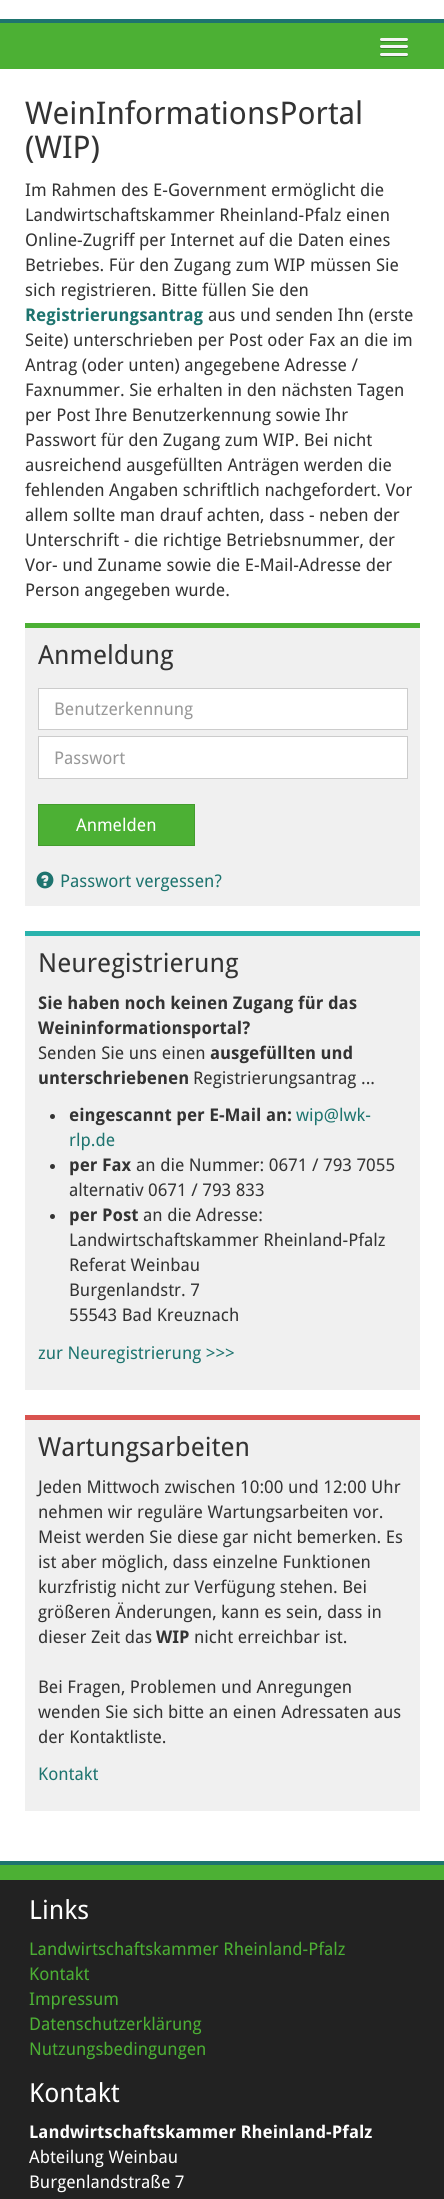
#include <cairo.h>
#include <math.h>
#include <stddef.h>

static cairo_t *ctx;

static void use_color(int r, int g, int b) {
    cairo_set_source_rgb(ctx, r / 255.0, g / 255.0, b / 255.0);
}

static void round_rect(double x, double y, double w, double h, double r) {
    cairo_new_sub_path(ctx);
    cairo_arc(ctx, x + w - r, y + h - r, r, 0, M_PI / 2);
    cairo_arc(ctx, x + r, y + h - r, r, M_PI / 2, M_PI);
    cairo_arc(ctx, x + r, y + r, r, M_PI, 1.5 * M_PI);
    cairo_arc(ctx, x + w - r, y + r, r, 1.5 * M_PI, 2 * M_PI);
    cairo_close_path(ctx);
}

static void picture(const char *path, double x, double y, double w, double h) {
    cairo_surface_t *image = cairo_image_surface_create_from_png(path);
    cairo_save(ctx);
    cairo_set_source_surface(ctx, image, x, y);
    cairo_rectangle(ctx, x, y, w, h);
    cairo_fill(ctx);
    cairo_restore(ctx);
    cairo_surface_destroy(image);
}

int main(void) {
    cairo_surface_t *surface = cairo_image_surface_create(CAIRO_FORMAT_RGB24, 444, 2199);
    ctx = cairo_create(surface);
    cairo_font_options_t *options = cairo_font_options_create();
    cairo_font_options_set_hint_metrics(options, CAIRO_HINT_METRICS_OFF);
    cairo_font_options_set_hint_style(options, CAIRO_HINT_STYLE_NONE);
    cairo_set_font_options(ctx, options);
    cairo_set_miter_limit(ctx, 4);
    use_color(34, 34, 34);
    cairo_paint(ctx);
    use_color(255, 255, 255);
    cairo_rectangle(ctx, 0, 0, 444, 1861);
    cairo_fill(ctx);
    use_color(30, 116, 111);
    cairo_rectangle(ctx, 0, 1861, 444, 4);
    cairo_fill(ctx);
    cairo_rectangle(ctx, 0, 19, 444, 4);
    cairo_fill(ctx);
    use_color(76, 176, 52);
    cairo_rectangle(ctx, 0, 23, 444, 46);
    cairo_fill(ctx);
    use_color(57, 132, 39);
    cairo_new_path(ctx);
    cairo_move_to(ctx, 380.5, 39.5);
    cairo_line_to(ctx, 380, 41);
    cairo_curve_to(ctx, 380.5, 43, 385, 42, 385.5, 42);
    cairo_line_to(ctx, 407, 42);
    cairo_curve_to(ctx, 408, 41.5, 408.5, 40, 407.5, 39.5);
    cairo_curve_to(ctx, 406.5, 41, 402, 40, 402, 40);
    cairo_curve_to(ctx, 399.5, 40, 381.5, 40.5, 380.5, 39.5);
    cairo_close_path(ctx);
    cairo_fill(ctx);
    use_color(245, 245, 245);
    round_rect(380, 38, 28, 3, 1.5);
    cairo_fill(ctx);
    use_color(57, 132, 39);
    cairo_new_path(ctx);
    cairo_move_to(ctx, 380, 47);
    cairo_curve_to(ctx, 378.5, 50, 385.5, 49, 385.5, 49);
    cairo_line_to(ctx, 406.5, 49);
    cairo_curve_to(ctx, 408, 49, 408.5, 47.5, 407.5, 46.5);
    cairo_line_to(ctx, 407.5, 47);
    cairo_line_to(ctx, 406, 47.5);
    cairo_line_to(ctx, 381, 47.5);
    cairo_close_path(ctx);
    cairo_fill(ctx);
    use_color(245, 245, 245);
    round_rect(380, 45, 28, 3, 1.5);
    cairo_fill(ctx);
    use_color(57, 132, 39);
    cairo_new_path(ctx);
    cairo_move_to(ctx, 380.5, 54.5);
    cairo_line_to(ctx, 380, 56);
    cairo_curve_to(ctx, 380.5, 58, 385, 57, 385.5, 57);
    cairo_line_to(ctx, 407, 57);
    cairo_curve_to(ctx, 408, 56.5, 408.5, 55, 407.5, 54.5);
    cairo_curve_to(ctx, 406.5, 56, 402, 55, 402, 55);
    cairo_curve_to(ctx, 399.5, 55, 381.5, 55.5, 380.5, 54.5);
    cairo_close_path(ctx);
    cairo_fill(ctx);
    use_color(245, 245, 245);
    round_rect(380, 53, 28, 3, 1.5);
    cairo_fill(ctx);
    cairo_select_font_face(ctx, "Droid Sans", CAIRO_FONT_SLANT_NORMAL, CAIRO_FONT_WEIGHT_NORMAL);
    cairo_set_font_size(ctx, 31.25);
    use_color(51, 51, 51);
    cairo_move_to(ctx, 25, 124);
    cairo_show_text(ctx, "WeinInformationsPortal");
    cairo_move_to(ctx, 25, 158);
    cairo_show_text(ctx, "(WIP)");
    cairo_set_font_size(ctx, 17.5);
    cairo_move_to(ctx, 25, 196);
    cairo_show_text(ctx, "Im Rahmen des E-Government ermöglicht die");
    cairo_move_to(ctx, 25, 221);
    cairo_show_text(ctx, "Landwirtschaftskammer Rheinland-Pfalz einen");
    cairo_move_to(ctx, 25, 246);
    cairo_show_text(ctx, "Online-Zugriff per Internet auf die Daten eines");
    cairo_move_to(ctx, 25, 271);
    cairo_show_text(ctx, "Betriebes. Für den Zugang zum WIP müssen Sie");
    cairo_move_to(ctx, 25, 296);
    cairo_show_text(ctx, "sich registrieren. Bitte füllen Sie den");
    cairo_select_font_face(ctx, "Droid Sans", CAIRO_FONT_SLANT_NORMAL, CAIRO_FONT_WEIGHT_BOLD);
    use_color(30, 116, 111);
    cairo_move_to(ctx, 25, 321);
    cairo_show_text(ctx, "Registrierungsantrag");
    cairo_select_font_face(ctx, "Droid Sans", CAIRO_FONT_SLANT_NORMAL, CAIRO_FONT_WEIGHT_NORMAL);
    use_color(51, 51, 51);
    cairo_move_to(ctx, 208, 321);
    cairo_show_text(ctx, "aus und senden Ihn (erste");
    cairo_move_to(ctx, 25, 346);
    cairo_show_text(ctx, "Seite) unterschrieben per Post oder Fax an die im");
    cairo_move_to(ctx, 25, 371);
    cairo_show_text(ctx, "Antrag (oder unten) angegebene Adresse /");
    cairo_move_to(ctx, 25, 396);
    cairo_show_text(ctx, "Faxnummer. Sie erhalten in den nächsten Tagen");
    cairo_move_to(ctx, 25, 421);
    cairo_show_text(ctx, "per Post Ihre Benutzerkennung sowie Ihr");
    cairo_move_to(ctx, 25, 446);
    cairo_show_text(ctx, "Passwort für den Zugang zum WIP. Bei nicht");
    cairo_move_to(ctx, 25, 471);
    cairo_show_text(ctx, "ausreichend ausgefüllten Anträgen werden die");
    cairo_move_to(ctx, 25, 496);
    cairo_show_text(ctx, "fehlenden Angaben schriftlich nachgefordert. Vor");
    cairo_move_to(ctx, 25, 521);
    cairo_show_text(ctx, "allem sollte man drauf achten, dass - neben der");
    cairo_move_to(ctx, 25, 546);
    cairo_show_text(ctx, "Unterschrift - die richtige Betriebsnummer, der");
    cairo_move_to(ctx, 25, 571);
    cairo_show_text(ctx, "Vor- und Zuname sowie die E-Mail-Adresse der");
    cairo_move_to(ctx, 25, 596);
    cairo_show_text(ctx, "Person angegeben wurde.");
    use_color(240, 240, 240);
    cairo_rectangle(ctx, 25, 628, 395, 278);
    cairo_fill(ctx);
    use_color(76, 176, 52);
    cairo_rectangle(ctx, 25, 623, 395, 5);
    cairo_fill(ctx);
    cairo_set_font_size(ctx, 26.25);
    use_color(51, 51, 51);
    cairo_move_to(ctx, 38, 664);
    cairo_show_text(ctx, "Anmeldung");
    use_color(255, 255, 255);
    cairo_rectangle(ctx, 38.5, 688.5, 369, 41);
    cairo_fill_preserve(ctx);
    use_color(204, 204, 204);
    cairo_set_line_width(ctx, 1);
    cairo_stroke(ctx);
    cairo_set_font_size(ctx, 17.5);
    use_color(153, 153, 153);
    cairo_move_to(ctx, 54, 715);
    cairo_show_text(ctx, "Benutzerkennung");
    use_color(255, 255, 255);
    cairo_rectangle(ctx, 38.5, 736.5, 369, 42);
    cairo_fill_preserve(ctx);
    use_color(204, 204, 204);
    cairo_stroke(ctx);
    use_color(153, 153, 153);
    cairo_move_to(ctx, 54, 764);
    cairo_show_text(ctx, "Passwort");
    use_color(76, 176, 52);
    cairo_rectangle(ctx, 38.5, 804.5, 156, 41);
    cairo_fill_preserve(ctx);
    use_color(68, 156, 46);
    cairo_stroke(ctx);
    use_color(255, 255, 255);
    cairo_move_to(ctx, 76, 831);
    cairo_show_text(ctx, "Anmelden");
    picture("img1.png", 36, 871, 18, 18);
    use_color(30, 116, 111);
    cairo_move_to(ctx, 60, 887);
    cairo_show_text(ctx, "Passwort vergessen?");
    use_color(240, 240, 240);
    cairo_rectangle(ctx, 25, 936, 395, 454);
    cairo_fill(ctx);
    use_color(42, 179, 173);
    cairo_rectangle(ctx, 25, 931, 395, 5);
    cairo_fill(ctx);
    cairo_set_font_size(ctx, 26.25);
    use_color(51, 51, 51);
    cairo_move_to(ctx, 38, 972);
    cairo_show_text(ctx, "Neuregistrierung");
    cairo_select_font_face(ctx, "Droid Sans", CAIRO_FONT_SLANT_NORMAL, CAIRO_FONT_WEIGHT_BOLD);
    cairo_set_font_size(ctx, 17.5);
    cairo_move_to(ctx, 38, 1009);
    cairo_show_text(ctx, "Sie haben noch keinen Zugang für das");
    cairo_move_to(ctx, 38, 1034);
    cairo_show_text(ctx, "Weininformationsportal?");
    cairo_select_font_face(ctx, "Droid Sans", CAIRO_FONT_SLANT_NORMAL, CAIRO_FONT_WEIGHT_NORMAL);
    cairo_move_to(ctx, 38, 1059);
    cairo_show_text(ctx, "Senden Sie uns einen");
    cairo_select_font_face(ctx, "Droid Sans", CAIRO_FONT_SLANT_NORMAL, CAIRO_FONT_WEIGHT_BOLD);
    cairo_move_to(ctx, 210, 1059);
    cairo_show_text(ctx, "ausgefüllten und");
    cairo_move_to(ctx, 38, 1084);
    cairo_show_text(ctx, "unterschriebenen");
    cairo_select_font_face(ctx, "Droid Sans", CAIRO_FONT_SLANT_NORMAL, CAIRO_FONT_WEIGHT_NORMAL);
    cairo_move_to(ctx, 193, 1084);
    cairo_show_text(ctx, "Registrierungsantrag ...");
    cairo_new_path(ctx);
    cairo_arc(ctx, 52.5, 1116.5, 2.5, 0, 2 * M_PI);
    cairo_fill(ctx);
    cairo_select_font_face(ctx, "Droid Sans", CAIRO_FONT_SLANT_NORMAL, CAIRO_FONT_WEIGHT_BOLD);
    cairo_move_to(ctx, 69, 1121);
    cairo_show_text(ctx, "eingescannt per E-Mail an:");
    cairo_select_font_face(ctx, "Droid Sans", CAIRO_FONT_SLANT_NORMAL, CAIRO_FONT_WEIGHT_NORMAL);
    use_color(30, 116, 111);
    cairo_move_to(ctx, 296, 1121);
    cairo_show_text(ctx, "wip@lwk-");
    cairo_move_to(ctx, 69, 1146);
    cairo_show_text(ctx, "rlp.de");
    use_color(51, 51, 51);
    cairo_new_path(ctx);
    cairo_arc(ctx, 52.5, 1166.5, 2.5, 0, 2 * M_PI);
    cairo_fill(ctx);
    cairo_select_font_face(ctx, "Droid Sans", CAIRO_FONT_SLANT_NORMAL, CAIRO_FONT_WEIGHT_BOLD);
    cairo_move_to(ctx, 69, 1171);
    cairo_show_text(ctx, "per Fax");
    cairo_select_font_face(ctx, "Droid Sans", CAIRO_FONT_SLANT_NORMAL, CAIRO_FONT_WEIGHT_NORMAL);
    cairo_move_to(ctx, 136, 1171);
    cairo_show_text(ctx, "an die Nummer: 0671 / 793 7055");
    cairo_move_to(ctx, 69, 1196);
    cairo_show_text(ctx, "alternativ 0671 / 793 833");
    cairo_new_path(ctx);
    cairo_arc(ctx, 52.5, 1216.5, 2.5, 0, 2 * M_PI);
    cairo_fill(ctx);
    cairo_select_font_face(ctx, "Droid Sans", CAIRO_FONT_SLANT_NORMAL, CAIRO_FONT_WEIGHT_BOLD);
    cairo_move_to(ctx, 69, 1221);
    cairo_show_text(ctx, "per Post");
    cairo_select_font_face(ctx, "Droid Sans", CAIRO_FONT_SLANT_NORMAL, CAIRO_FONT_WEIGHT_NORMAL);
    cairo_move_to(ctx, 143, 1221);
    cairo_show_text(ctx, "an die Adresse:");
    cairo_move_to(ctx, 69, 1246);
    cairo_show_text(ctx, "Landwirtschaftskammer Rheinland-Pfalz");
    cairo_move_to(ctx, 69, 1271);
    cairo_show_text(ctx, "Referat Weinbau");
    cairo_move_to(ctx, 69, 1296);
    cairo_show_text(ctx, "Burgenlandstr. 7");
    cairo_move_to(ctx, 69, 1321);
    cairo_show_text(ctx, "55543 Bad Kreuznach");
    use_color(30, 116, 111);
    cairo_move_to(ctx, 38, 1359);
    cairo_show_text(ctx, "zur Neuregistrierung >>>");
    use_color(240, 240, 240);
    cairo_rectangle(ctx, 25, 1420, 395, 391);
    cairo_fill(ctx);
    use_color(217, 83, 79);
    cairo_rectangle(ctx, 25, 1415, 395, 5);
    cairo_fill(ctx);
    cairo_set_font_size(ctx, 26.25);
    use_color(51, 51, 51);
    cairo_move_to(ctx, 38, 1456);
    cairo_show_text(ctx, "Wartungsarbeiten");
    cairo_set_font_size(ctx, 17.5);
    cairo_move_to(ctx, 38, 1493);
    cairo_show_text(ctx, "Jeden Mittwoch zwischen 10:00 und 12:00 Uhr");
    cairo_move_to(ctx, 38, 1518);
    cairo_show_text(ctx, "nehmen wir reguläre Wartungsarbeiten vor.");
    cairo_move_to(ctx, 38, 1543);
    cairo_show_text(ctx, "Meist werden Sie diese gar nicht bemerken. Es");
    cairo_move_to(ctx, 38, 1568);
    cairo_show_text(ctx, "ist aber möglich, dass einzelne Funktionen");
    cairo_move_to(ctx, 38, 1593);
    cairo_show_text(ctx, "kurzfristig nicht zur Verfügung stehen. Bei");
    cairo_move_to(ctx, 38, 1618);
    cairo_show_text(ctx, "größeren Änderungen, kann es sein, dass in");
    cairo_move_to(ctx, 38, 1643);
    cairo_show_text(ctx, "dieser Zeit das");
    cairo_select_font_face(ctx, "Droid Sans", CAIRO_FONT_SLANT_NORMAL, CAIRO_FONT_WEIGHT_BOLD);
    cairo_move_to(ctx, 156, 1643);
    cairo_show_text(ctx, "WIP");
    cairo_select_font_face(ctx, "Droid Sans", CAIRO_FONT_SLANT_NORMAL, CAIRO_FONT_WEIGHT_NORMAL);
    cairo_move_to(ctx, 194, 1643);
    cairo_show_text(ctx, "nicht erreichbar ist.");
    cairo_move_to(ctx, 38, 1693);
    cairo_show_text(ctx, "Bei Fragen, Problemen und Anregungen");
    cairo_move_to(ctx, 38, 1718);
    cairo_show_text(ctx, "wenden Sie sich bitte an einen Adressaten aus");
    cairo_move_to(ctx, 38, 1743);
    cairo_show_text(ctx, "der Kontaktliste.");
    use_color(30, 116, 111);
    cairo_move_to(ctx, 38, 1780);
    cairo_show_text(ctx, "Kontakt");
    use_color(76, 176, 52);
    cairo_rectangle(ctx, 0, 1865, 444, 15);
    cairo_fill(ctx);
    cairo_set_font_size(ctx, 26.25);
    use_color(255, 255, 255);
    cairo_move_to(ctx, 29, 1919);
    cairo_show_text(ctx, "Links");
    cairo_set_font_size(ctx, 17.5);
    use_color(76, 176, 52);
    cairo_move_to(ctx, 29, 1955);
    cairo_show_text(ctx, "Landwirtschaftskammer Rheinland-Pfalz");
    cairo_move_to(ctx, 29, 1980);
    cairo_show_text(ctx, "Kontakt");
    cairo_move_to(ctx, 29, 2005);
    cairo_show_text(ctx, "Impressum");
    cairo_move_to(ctx, 29, 2030);
    cairo_show_text(ctx, "Datenschutzerklärung");
    cairo_move_to(ctx, 29, 2055);
    cairo_show_text(ctx, "Nutzungsbedingungen");
    cairo_set_font_size(ctx, 26.25);
    use_color(255, 255, 255);
    cairo_move_to(ctx, 29, 2102);
    cairo_show_text(ctx, "Kontakt");
    cairo_select_font_face(ctx, "Droid Sans", CAIRO_FONT_SLANT_NORMAL, CAIRO_FONT_WEIGHT_BOLD);
    cairo_set_font_size(ctx, 17.5);
    cairo_move_to(ctx, 29, 2138);
    cairo_show_text(ctx, "Landwirtschaftskammer Rheinland-Pfalz");
    cairo_select_font_face(ctx, "Droid Sans", CAIRO_FONT_SLANT_NORMAL, CAIRO_FONT_WEIGHT_NORMAL);
    cairo_move_to(ctx, 29, 2163);
    cairo_show_text(ctx, "Abteilung Weinbau");
    cairo_move_to(ctx, 29, 2188);
    cairo_show_text(ctx, "Burgenlandstraße 7");
    cairo_surface_write_to_png(surface, "result.png");
    cairo_font_options_destroy(options);
    cairo_destroy(ctx);
    cairo_surface_destroy(surface);
    return 0;
}
